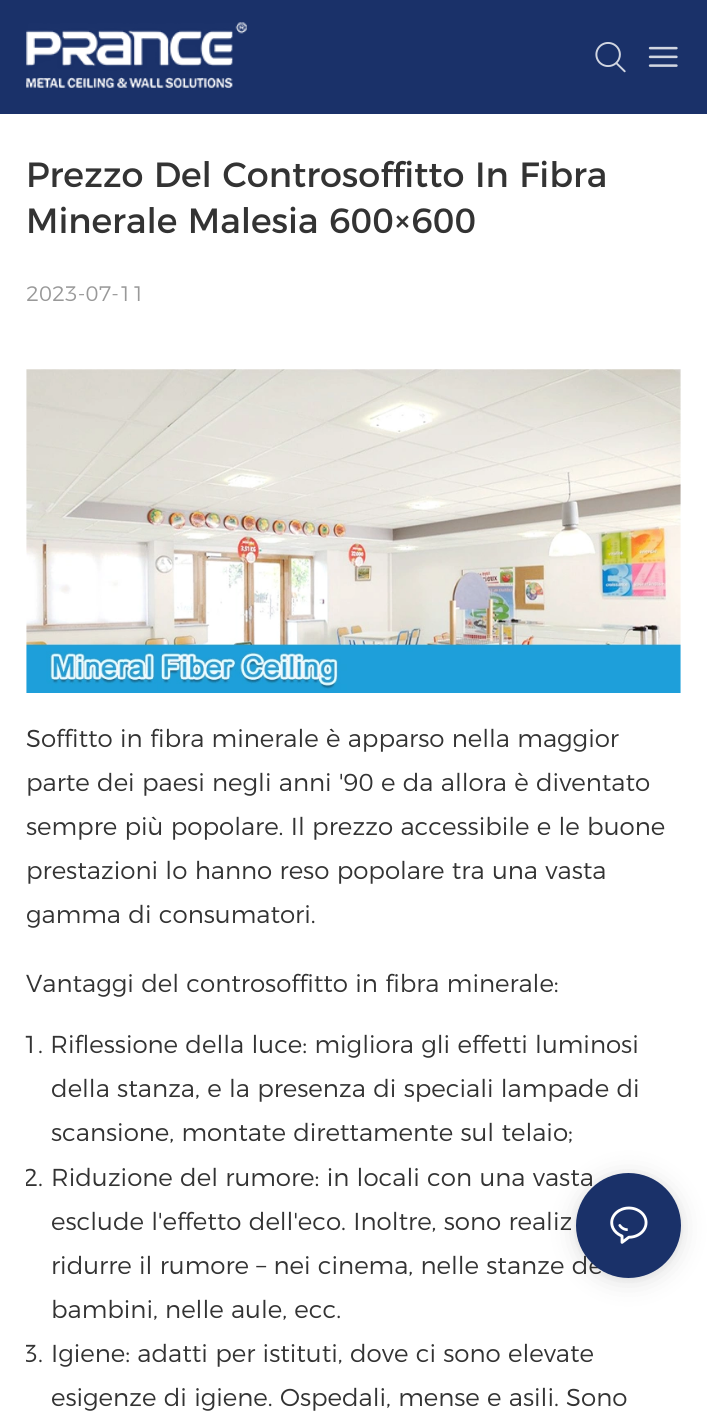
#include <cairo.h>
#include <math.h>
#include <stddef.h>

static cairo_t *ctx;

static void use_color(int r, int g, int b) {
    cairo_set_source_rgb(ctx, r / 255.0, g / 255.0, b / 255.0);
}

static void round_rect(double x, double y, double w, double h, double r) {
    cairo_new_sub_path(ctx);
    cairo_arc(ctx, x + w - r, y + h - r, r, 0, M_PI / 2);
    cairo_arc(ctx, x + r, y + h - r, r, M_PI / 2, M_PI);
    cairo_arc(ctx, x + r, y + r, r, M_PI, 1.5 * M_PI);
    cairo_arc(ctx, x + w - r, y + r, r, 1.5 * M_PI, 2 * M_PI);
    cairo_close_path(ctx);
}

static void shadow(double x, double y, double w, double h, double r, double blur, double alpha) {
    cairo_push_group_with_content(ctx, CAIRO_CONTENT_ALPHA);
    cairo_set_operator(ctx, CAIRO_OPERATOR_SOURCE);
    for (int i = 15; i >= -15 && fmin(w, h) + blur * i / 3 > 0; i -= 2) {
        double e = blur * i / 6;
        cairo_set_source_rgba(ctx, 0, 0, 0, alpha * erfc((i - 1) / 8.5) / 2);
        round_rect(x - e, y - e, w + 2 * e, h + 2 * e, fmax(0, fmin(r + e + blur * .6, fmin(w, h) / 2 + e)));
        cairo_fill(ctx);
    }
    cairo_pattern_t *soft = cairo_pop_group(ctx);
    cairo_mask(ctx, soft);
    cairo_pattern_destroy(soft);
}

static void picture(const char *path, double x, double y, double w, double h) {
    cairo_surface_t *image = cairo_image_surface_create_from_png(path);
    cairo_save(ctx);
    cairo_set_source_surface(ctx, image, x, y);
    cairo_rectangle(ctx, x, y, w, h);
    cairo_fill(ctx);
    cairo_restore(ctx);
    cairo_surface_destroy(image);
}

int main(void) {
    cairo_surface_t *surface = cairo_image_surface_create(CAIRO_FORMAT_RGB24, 707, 1418);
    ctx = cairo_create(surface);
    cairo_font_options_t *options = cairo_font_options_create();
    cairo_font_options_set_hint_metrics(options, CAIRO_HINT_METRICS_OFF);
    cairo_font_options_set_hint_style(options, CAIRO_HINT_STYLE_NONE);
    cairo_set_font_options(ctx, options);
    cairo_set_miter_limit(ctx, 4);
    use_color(255, 255, 255);
    cairo_paint(ctx);
    use_color(26, 49, 105);
    cairo_rectangle(ctx, 0, 0, 707, 114);
    cairo_fill(ctx);
    picture("img1.png", 26, 22, 221, 66);
    picture("img2.png", 595, 42, 31, 31);
    picture("img3.png", 648, 46, 30, 21);
    cairo_select_font_face(ctx, "Montserrat", CAIRO_FONT_SLANT_NORMAL, CAIRO_FONT_WEIGHT_NORMAL);
    cairo_set_font_size(ctx, 35);
    use_color(51, 51, 51);
    cairo_move_to(ctx, 26, 187);
    cairo_show_text(ctx, "Prezzo Del Controsoffitto In Fibra");
    cairo_move_to(ctx, 26, 233);
    cairo_show_text(ctx, "Minerale Malesia 600×600");
    cairo_select_font_face(ctx, "Montserrat Light", CAIRO_FONT_SLANT_NORMAL, CAIRO_FONT_WEIGHT_NORMAL);
    cairo_set_font_size(ctx, 21);
    use_color(153, 153, 153);
    cairo_move_to(ctx, 26, 301);
    cairo_show_text(ctx, "2023-07-11");
    picture("img4.png", 26, 369, 655, 324);
    cairo_set_font_size(ctx, 24.5);
    use_color(51, 51, 51);
    cairo_move_to(ctx, 26, 747);
    cairo_show_text(ctx, "Soffitto in fibra minerale è apparso nella maggior");
    cairo_move_to(ctx, 26, 791);
    cairo_show_text(ctx, "parte dei paesi negli anni '90 e da allora è diventato");
    cairo_move_to(ctx, 26, 835);
    cairo_show_text(ctx, "sempre più popolare. Il prezzo accessibile e le buone");
    cairo_move_to(ctx, 26, 879);
    cairo_show_text(ctx, "prestazioni lo hanno reso popolare tra una vasta");
    cairo_move_to(ctx, 26, 923);
    cairo_show_text(ctx, "gamma di consumatori.");
    cairo_move_to(ctx, 26, 992);
    cairo_show_text(ctx, "Vantaggi del controsoffitto in fibra minerale:");
    cairo_move_to(ctx, 23, 1053);
    cairo_show_text(ctx, "1. Riflessione della luce: migliora gli effetti luminosi");
    cairo_move_to(ctx, 51, 1097);
    cairo_show_text(ctx, "della stanza, e la presenza di speciali lampade di");
    cairo_move_to(ctx, 51, 1141);
    cairo_show_text(ctx, "scansione, montate direttamente sul telaio;");
    cairo_save(ctx);
    cairo_rectangle(ctx, 26, 345, 655, 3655);
    cairo_clip(ctx);
    cairo_move_to(ctx, 23, 1186);
    cairo_show_text(ctx, "2.");
    cairo_restore(ctx);
    cairo_move_to(ctx, 51, 1186);
    cairo_show_text(ctx, "Riduzione del rumore: in locali con una vasta");
    cairo_move_to(ctx, 51, 1230);
    cairo_show_text(ctx, "esclude l'effetto dell'eco. Inoltre, sono realiz");
    cairo_move_to(ctx, 51, 1274);
    cairo_show_text(ctx, "ridurre il rumore – nei cinema, nelle stanze de");
    cairo_move_to(ctx, 51, 1318);
    cairo_show_text(ctx, "bambini, nelle aule, ecc.");
    cairo_save(ctx);
    cairo_rectangle(ctx, 26, 345, 655, 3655);
    cairo_clip(ctx);
    cairo_move_to(ctx, 23, 1362);
    cairo_show_text(ctx, "3.");
    cairo_restore(ctx);
    cairo_move_to(ctx, 51, 1362);
    cairo_show_text(ctx, "Igiene: adatti per istituti, dove ci sono elevate");
    cairo_move_to(ctx, 51, 1406);
    cairo_show_text(ctx, "esigenze di igiene. Ospedali, mense e asili. Sono");
    use_color(0, 0, 0);
    shadow(576, 1176, 105, 105, 52.5, 14, 0.12);
    shadow(576, 1174, 105, 105, 52.5, 3.5, 0.06);
    use_color(26, 49, 105);
    cairo_arc(ctx, 628.5, 1225.5, 52.5, 0, 2 * M_PI);
    cairo_fill(ctx);
    picture("img5.png", 610, 1206, 38, 38);
    cairo_surface_write_to_png(surface, "result.png");
    cairo_font_options_destroy(options);
    cairo_destroy(ctx);
    cairo_surface_destroy(surface);
    return 0;
}
